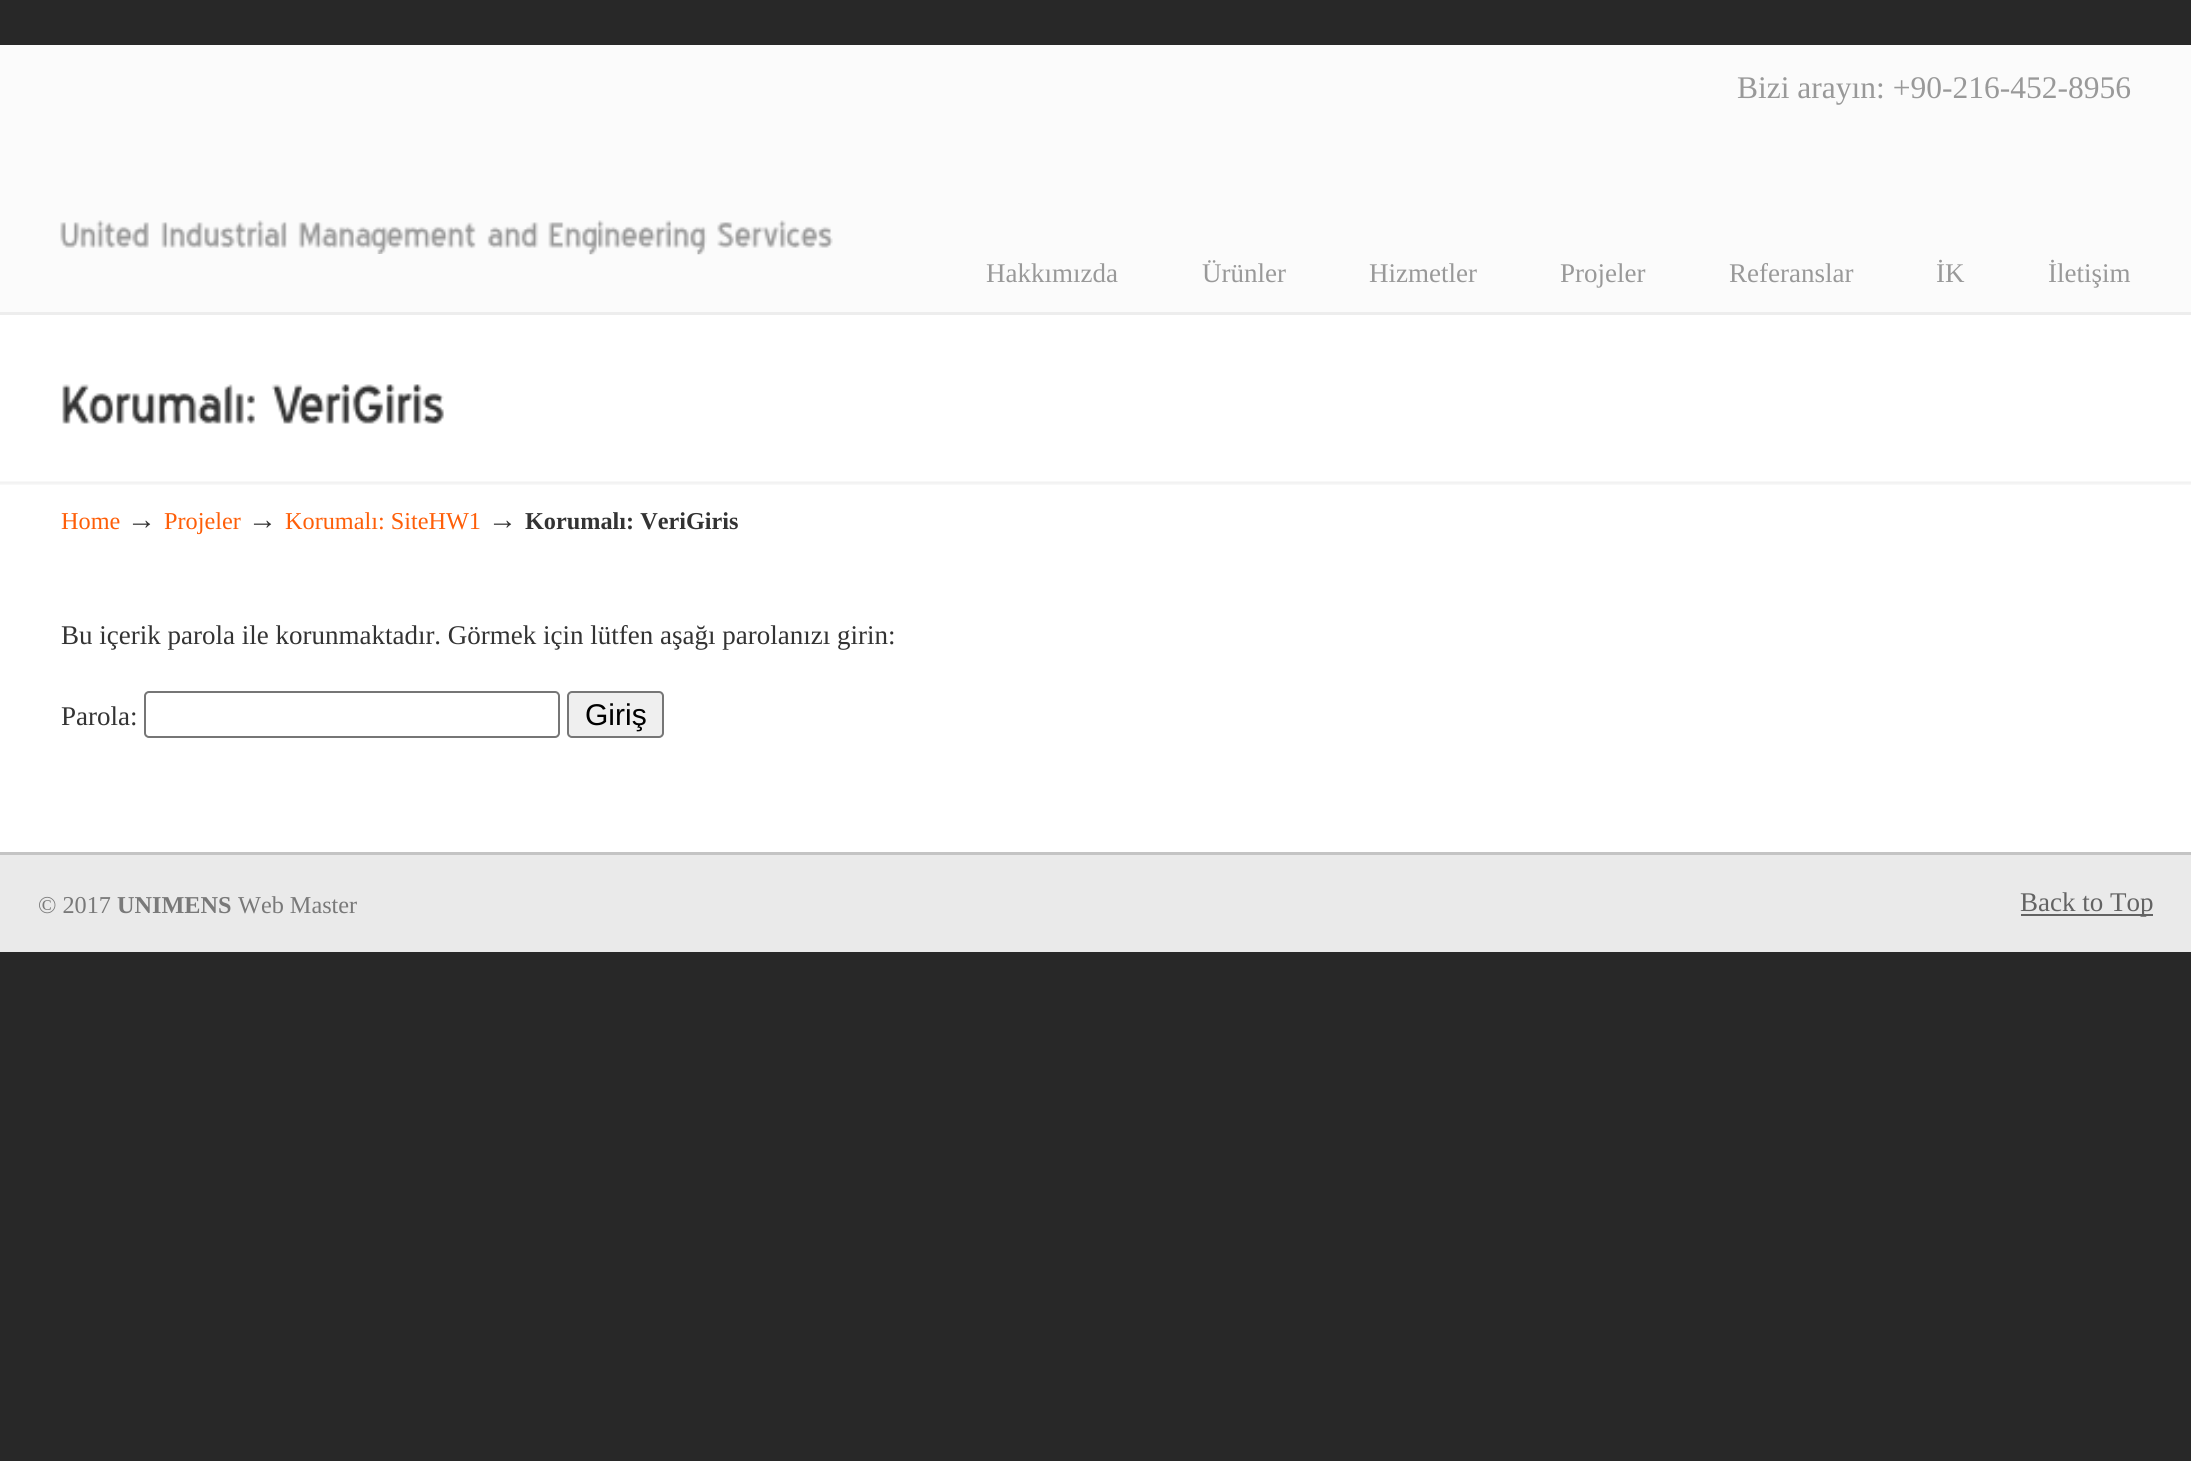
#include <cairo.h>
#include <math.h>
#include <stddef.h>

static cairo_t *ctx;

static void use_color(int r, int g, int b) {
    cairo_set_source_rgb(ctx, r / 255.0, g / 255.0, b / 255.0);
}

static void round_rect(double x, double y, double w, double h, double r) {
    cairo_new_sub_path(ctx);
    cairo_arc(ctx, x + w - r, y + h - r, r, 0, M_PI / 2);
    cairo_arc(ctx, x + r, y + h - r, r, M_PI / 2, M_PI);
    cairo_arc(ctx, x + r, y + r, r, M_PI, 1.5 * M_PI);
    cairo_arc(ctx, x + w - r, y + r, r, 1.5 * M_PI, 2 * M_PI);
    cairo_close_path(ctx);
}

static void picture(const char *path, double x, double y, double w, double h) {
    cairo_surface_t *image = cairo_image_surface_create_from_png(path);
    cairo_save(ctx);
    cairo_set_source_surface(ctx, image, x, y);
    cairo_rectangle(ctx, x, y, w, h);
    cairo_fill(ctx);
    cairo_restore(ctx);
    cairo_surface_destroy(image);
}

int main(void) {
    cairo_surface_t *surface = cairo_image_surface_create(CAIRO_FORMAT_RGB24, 2191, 1461);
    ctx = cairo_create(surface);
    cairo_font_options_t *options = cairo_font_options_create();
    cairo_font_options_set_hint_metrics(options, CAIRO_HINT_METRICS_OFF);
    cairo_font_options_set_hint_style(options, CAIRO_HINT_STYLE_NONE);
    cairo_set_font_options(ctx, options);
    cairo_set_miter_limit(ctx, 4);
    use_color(40, 40, 40);
    cairo_paint(ctx);
    use_color(251, 251, 251);
    cairo_rectangle(ctx, 0, 45, 2191, 267);
    cairo_fill(ctx);
    cairo_select_font_face(ctx, "Liberation Serif", CAIRO_FONT_SLANT_NORMAL, CAIRO_FONT_WEIGHT_NORMAL);
    cairo_set_font_size(ctx, 31.5);
    use_color(153, 153, 153);
    cairo_move_to(ctx, 1737, 98);
    cairo_show_text(ctx, "Bizi arayın: +90-216-452-8956");
    picture("img1.png", 60, 220, 89, 28);
    picture("img2.png", 161, 220, 126, 28);
    picture("img3.png", 298, 222, 178, 32);
    picture("img4.png", 487, 222, 52, 26);
    picture("img5.png", 548, 220, 159, 35);
    picture("img6.png", 717, 220, 116, 28);
    use_color(237, 237, 237);
    cairo_rectangle(ctx, 0, 312, 2191, 3);
    cairo_fill(ctx);
    cairo_set_font_size(ctx, 27);
    use_color(153, 153, 153);
    cairo_move_to(ctx, 986, 282);
    cairo_show_text(ctx, "Hakkımızda");
    cairo_move_to(ctx, 1202, 282);
    cairo_show_text(ctx, "Ürünler");
    cairo_move_to(ctx, 1369, 282);
    cairo_show_text(ctx, "Hizmetler");
    cairo_move_to(ctx, 1560, 282);
    cairo_show_text(ctx, "Projeler");
    cairo_move_to(ctx, 1729, 282);
    cairo_show_text(ctx, "Referanslar");
    cairo_move_to(ctx, 1936, 282);
    cairo_show_text(ctx, "İK");
    cairo_move_to(ctx, 2048, 282);
    cairo_show_text(ctx, "İletişim");
    use_color(255, 255, 255);
    cairo_rectangle(ctx, 0, 315, 2191, 537);
    cairo_fill(ctx);
    picture("img7.png", 62, 384, 193, 40);
    picture("img8.png", 271, 384, 173, 40);
    use_color(196, 196, 196);
    cairo_rectangle(ctx, 0, 852, 2191, 3);
    cairo_fill(ctx);
    picture("img9.png", 0, 481, 2191, 4);
    cairo_set_font_size(ctx, 24.25);
    use_color(254, 94, 8);
    cairo_move_to(ctx, 61, 529);
    cairo_show_text(ctx, "Home");
    cairo_set_font_size(ctx, 29);
    use_color(51, 51, 51);
    cairo_move_to(ctx, 127, 529);
    cairo_show_text(ctx, "→");
    cairo_set_font_size(ctx, 24.25);
    use_color(254, 94, 8);
    cairo_move_to(ctx, 164, 529);
    cairo_show_text(ctx, "Projeler");
    cairo_set_font_size(ctx, 29);
    use_color(51, 51, 51);
    cairo_move_to(ctx, 248, 529);
    cairo_show_text(ctx, "→");
    cairo_set_font_size(ctx, 24.25);
    use_color(254, 94, 8);
    cairo_move_to(ctx, 285, 529);
    cairo_show_text(ctx, "Korumalı: SiteHW1");
    cairo_set_font_size(ctx, 29);
    use_color(51, 51, 51);
    cairo_move_to(ctx, 488, 529);
    cairo_show_text(ctx, "→");
    cairo_select_font_face(ctx, "Liberation Serif", CAIRO_FONT_SLANT_NORMAL, CAIRO_FONT_WEIGHT_BOLD);
    cairo_set_font_size(ctx, 24.25);
    cairo_move_to(ctx, 525, 529);
    cairo_show_text(ctx, "Korumalı: VeriGiris");
    cairo_select_font_face(ctx, "Liberation Serif", CAIRO_FONT_SLANT_NORMAL, CAIRO_FONT_WEIGHT_NORMAL);
    cairo_set_font_size(ctx, 27);
    cairo_move_to(ctx, 61, 644);
    cairo_show_text(ctx, "Bu içerik parola ile korunmaktadır. Görmek için lütfen aşağı parolanızı girin:");
    cairo_move_to(ctx, 61, 725);
    cairo_show_text(ctx, "Parola:");
    round_rect(145, 692, 414, 45, 4);
    use_color(118, 118, 118);
    cairo_stroke(ctx);
    use_color(239, 239, 239);
    round_rect(568, 692, 95, 45, 4);
    cairo_fill_preserve(ctx);
    use_color(118, 118, 118);
    cairo_stroke(ctx);
    cairo_select_font_face(ctx, "Liberation Sans", CAIRO_FONT_SLANT_NORMAL, CAIRO_FONT_WEIGHT_NORMAL);
    cairo_set_font_size(ctx, 30);
    use_color(0, 0, 0);
    cairo_move_to(ctx, 585, 725);
    cairo_show_text(ctx, "Giriş");
    use_color(234, 234, 234);
    cairo_rectangle(ctx, 0, 855, 2191, 97);
    cairo_fill(ctx);
    cairo_select_font_face(ctx, "Liberation Serif", CAIRO_FONT_SLANT_NORMAL, CAIRO_FONT_WEIGHT_NORMAL);
    cairo_set_font_size(ctx, 24.25);
    use_color(121, 121, 121);
    cairo_move_to(ctx, 38, 913);
    cairo_show_text(ctx, "© 2017");
    cairo_select_font_face(ctx, "Liberation Serif", CAIRO_FONT_SLANT_NORMAL, CAIRO_FONT_WEIGHT_BOLD);
    cairo_move_to(ctx, 117, 913);
    cairo_show_text(ctx, "UNIMENS");
    cairo_select_font_face(ctx, "Liberation Serif", CAIRO_FONT_SLANT_NORMAL, CAIRO_FONT_WEIGHT_NORMAL);
    cairo_move_to(ctx, 238, 913);
    cairo_show_text(ctx, "Web Master");
    use_color(99, 99, 99);
    cairo_rectangle(ctx, 2021, 914, 132, 2);
    cairo_fill(ctx);
    cairo_set_font_size(ctx, 27);
    cairo_move_to(ctx, 2020, 911);
    cairo_show_text(ctx, "Back to Top");
    cairo_surface_write_to_png(surface, "result.png");
    cairo_font_options_destroy(options);
    cairo_destroy(ctx);
    cairo_surface_destroy(surface);
    return 0;
}
